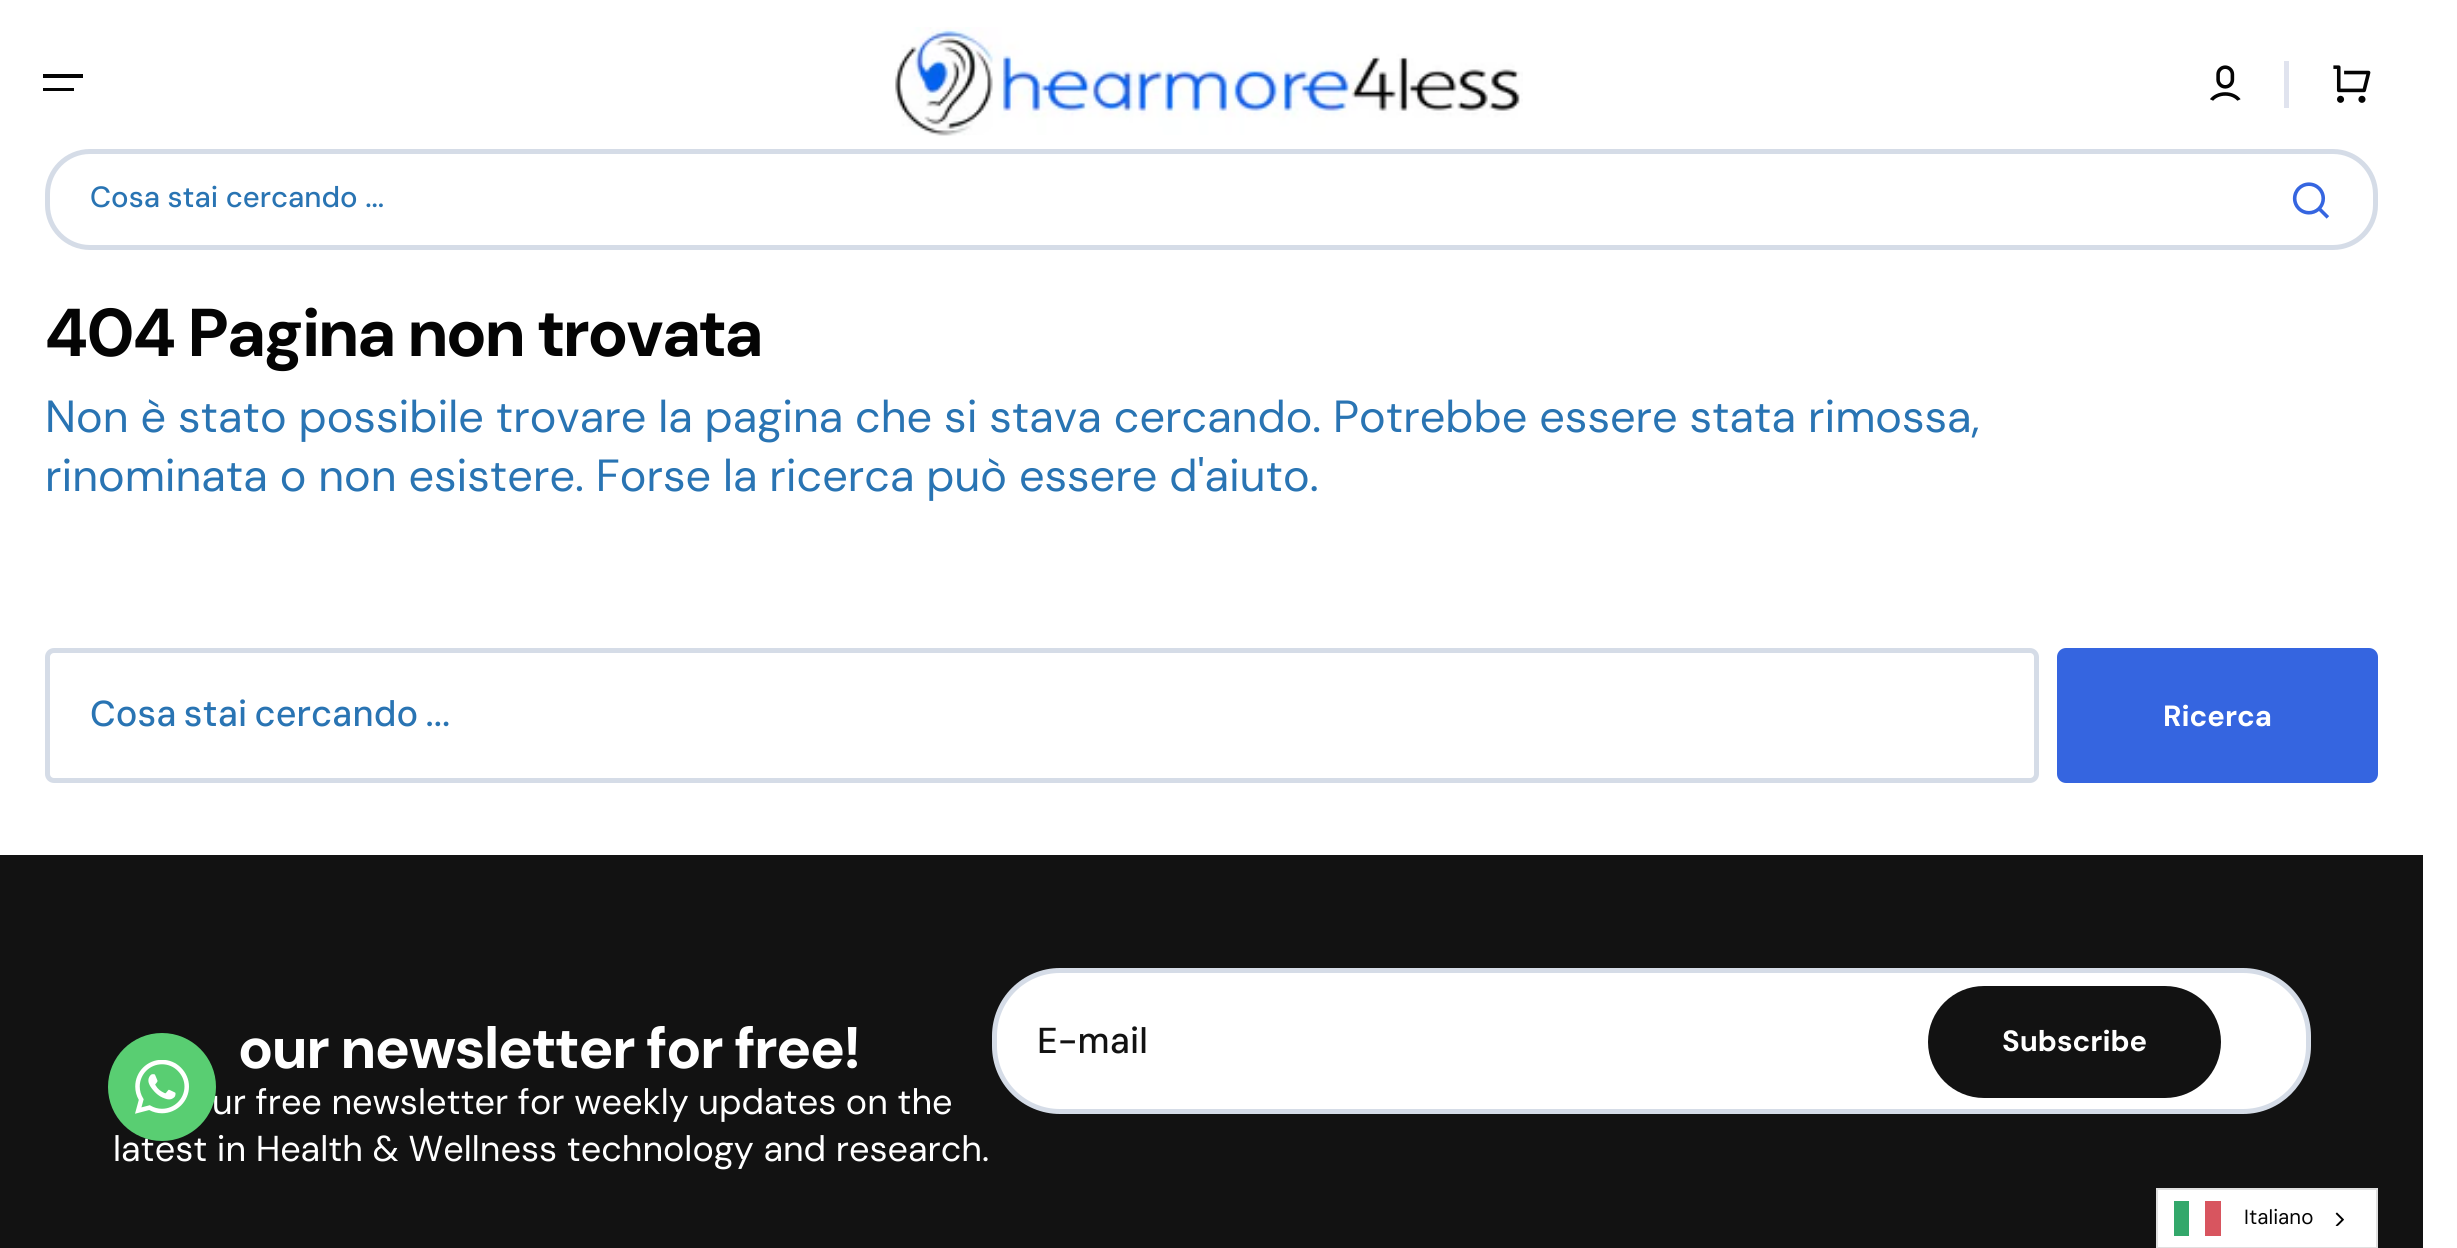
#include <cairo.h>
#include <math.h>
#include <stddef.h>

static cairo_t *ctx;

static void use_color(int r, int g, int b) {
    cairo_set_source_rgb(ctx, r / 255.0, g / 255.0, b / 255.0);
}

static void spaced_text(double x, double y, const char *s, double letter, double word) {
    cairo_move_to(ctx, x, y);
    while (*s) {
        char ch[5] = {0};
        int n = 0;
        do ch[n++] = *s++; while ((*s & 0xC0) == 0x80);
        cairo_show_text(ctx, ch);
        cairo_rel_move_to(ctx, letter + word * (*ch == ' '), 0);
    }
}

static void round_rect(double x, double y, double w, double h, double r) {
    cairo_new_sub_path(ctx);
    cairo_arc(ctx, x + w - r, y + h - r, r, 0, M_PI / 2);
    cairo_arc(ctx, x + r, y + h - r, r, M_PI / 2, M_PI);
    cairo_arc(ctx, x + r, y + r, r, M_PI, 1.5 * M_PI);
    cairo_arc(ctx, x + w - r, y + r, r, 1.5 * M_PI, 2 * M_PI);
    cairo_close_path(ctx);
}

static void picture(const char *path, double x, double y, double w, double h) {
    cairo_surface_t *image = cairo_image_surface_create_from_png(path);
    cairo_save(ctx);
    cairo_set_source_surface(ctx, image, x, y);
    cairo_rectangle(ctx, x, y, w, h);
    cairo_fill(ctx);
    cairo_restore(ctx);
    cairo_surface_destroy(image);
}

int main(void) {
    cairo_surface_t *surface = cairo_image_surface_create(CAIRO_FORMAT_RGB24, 2457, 1248);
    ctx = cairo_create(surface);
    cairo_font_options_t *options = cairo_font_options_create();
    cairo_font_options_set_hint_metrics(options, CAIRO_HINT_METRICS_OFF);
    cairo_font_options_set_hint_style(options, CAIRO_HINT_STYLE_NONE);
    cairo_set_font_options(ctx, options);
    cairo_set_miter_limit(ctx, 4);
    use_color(255, 255, 255);
    cairo_paint(ctx);
    use_color(4, 4, 4);
    cairo_rectangle(ctx, 43, 74, 40, 4);
    cairo_fill(ctx);
    cairo_rectangle(ctx, 43, 88, 31, 3);
    cairo_fill(ctx);
    picture("img1.png", 894, 27, 629, 109);
    picture("img2.png", 2210, 65, 31, 36);
    use_color(224, 227, 238);
    cairo_rectangle(ctx, 2284, 61, 5, 47);
    cairo_fill(ctx);
    picture("img3.png", 2333, 65, 38, 38);
    round_rect(47.5, 151.5, 2328, 96, 42.5);
    use_color(213, 220, 231);
    cairo_set_line_width(ctx, 5);
    cairo_stroke(ctx);
    cairo_select_font_face(ctx, "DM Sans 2 Medium", CAIRO_FONT_SLANT_NORMAL, CAIRO_FONT_WEIGHT_NORMAL);
    cairo_set_font_size(ctx, 29.25);
    use_color(41, 116, 179);
    cairo_move_to(ctx, 90, 207);
    cairo_show_text(ctx, "Cosa stai cercando ...");
    picture("img4.png", 2292, 182, 38, 37);
    cairo_select_font_face(ctx, "DM Sans", CAIRO_FONT_SLANT_NORMAL, CAIRO_FONT_WEIGHT_BOLD);
    cairo_set_font_size(ctx, 67.5);
    use_color(4, 4, 4);
    spaced_text(45, 356, "404 Pagina non trovata", -1.35, 0);
    cairo_select_font_face(ctx, "DM Sans", CAIRO_FONT_SLANT_NORMAL, CAIRO_FONT_WEIGHT_NORMAL);
    cairo_set_font_size(ctx, 45);
    use_color(41, 116, 179);
    cairo_move_to(ctx, 45, 432);
    cairo_show_text(ctx, "Non è stato possibile trovare la pagina che si stava cercando. Potrebbe essere stata rimossa,");
    cairo_move_to(ctx, 45, 491);
    cairo_show_text(ctx, "rinominata o non esistere. Forse la ricerca può essere d'aiuto.");
    round_rect(47.5, 650.5, 1989, 130, 6.5);
    use_color(213, 220, 231);
    cairo_stroke(ctx);
    cairo_select_font_face(ctx, "DM Sans Medium", CAIRO_FONT_SLANT_NORMAL, CAIRO_FONT_WEIGHT_NORMAL);
    cairo_set_font_size(ctx, 36);
    use_color(41, 116, 179);
    spaced_text(90, 726, "Cosa stai cercando ...", 0, -2);
    use_color(53, 101, 224);
    round_rect(2057, 648, 321, 135, 9);
    cairo_fill(ctx);
    cairo_select_font_face(ctx, "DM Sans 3", CAIRO_FONT_SLANT_NORMAL, CAIRO_FONT_WEIGHT_BOLD);
    cairo_set_font_size(ctx, 29.25);
    use_color(255, 255, 255);
    cairo_move_to(ctx, 2163, 726);
    cairo_show_text(ctx, "Ricerca");
    use_color(18, 18, 18);
    cairo_rectangle(ctx, 0, 855, 2423, 393);
    cairo_fill(ctx);
    cairo_select_font_face(ctx, "DM Sans 2", CAIRO_FONT_SLANT_NORMAL, CAIRO_FONT_WEIGHT_BOLD);
    cairo_set_font_size(ctx, 58.5);
    use_color(255, 255, 255);
    spaced_text(238, 1068, "our newsletter for free!", -1.2, 0);
    cairo_select_font_face(ctx, "DM Sans 2", CAIRO_FONT_SLANT_NORMAL, CAIRO_FONT_WEIGHT_NORMAL);
    cairo_set_font_size(ctx, 36);
    cairo_move_to(ctx, 212, 1114);
    cairo_show_text(ctx, "ur free newsletter for weekly updates on the");
    cairo_move_to(ctx, 113, 1161);
    cairo_show_text(ctx, "latest in Health & Wellness technology and research.");
    round_rect(994.5, 970.5, 1314, 141, 65.5);
    cairo_fill_preserve(ctx);
    use_color(213, 220, 231);
    cairo_stroke(ctx);
    cairo_select_font_face(ctx, "DM Sans Medium", CAIRO_FONT_SLANT_NORMAL, CAIRO_FONT_WEIGHT_NORMAL);
    use_color(18, 18, 18);
    cairo_move_to(ctx, 1037, 1053);
    cairo_show_text(ctx, "E-mail");
    round_rect(1928, 986, 293, 112, 56);
    cairo_fill(ctx);
    cairo_select_font_face(ctx, "DM Sans 3", CAIRO_FONT_SLANT_NORMAL, CAIRO_FONT_WEIGHT_BOLD);
    cairo_set_font_size(ctx, 29.25);
    use_color(255, 255, 255);
    cairo_move_to(ctx, 2002, 1051);
    cairo_show_text(ctx, "Subscribe");
    use_color(89, 206, 114);
    cairo_new_path(ctx);
    cairo_arc(ctx, 162, 1087, 54, 0, 2 * M_PI);
    cairo_fill(ctx);
    picture("img5.png", 135, 1060, 54, 54);
    use_color(255, 255, 255);
    cairo_rectangle(ctx, 2157, 1189, 220, 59);
    cairo_fill_preserve(ctx);
    use_color(224, 224, 224);
    cairo_set_line_width(ctx, 2);
    cairo_stroke(ctx);
    use_color(51, 168, 107);
    cairo_rectangle(ctx, 2174, 1201, 15, 35);
    cairo_fill(ctx);
    use_color(216, 85, 95);
    cairo_rectangle(ctx, 2205, 1201, 16, 35);
    cairo_fill(ctx);
    cairo_select_font_face(ctx, "DM Sans 3", CAIRO_FONT_SLANT_NORMAL, CAIRO_FONT_WEIGHT_NORMAL);
    cairo_set_font_size(ctx, 20.5);
    use_color(4, 4, 4);
    cairo_move_to(ctx, 2244, 1224);
    cairo_show_text(ctx, "Italiano");
    picture("img6.png", 2335, 1212, 9, 14);
    cairo_surface_write_to_png(surface, "result.png");
    cairo_font_options_destroy(options);
    cairo_destroy(ctx);
    cairo_surface_destroy(surface);
    return 0;
}
